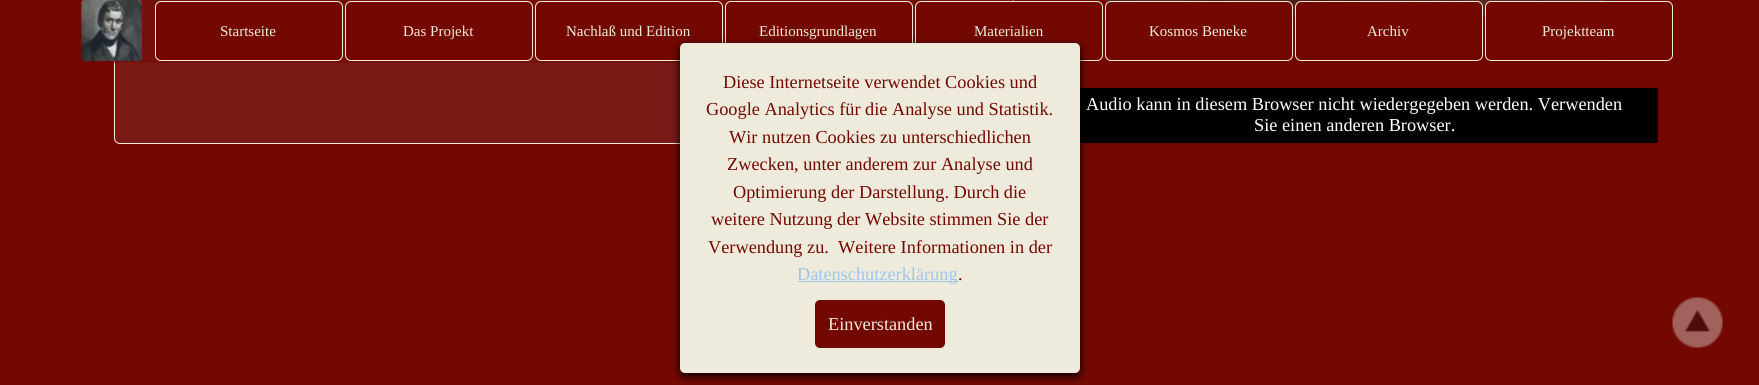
#include <cairo.h>
#include <math.h>
#include <stddef.h>

static cairo_t *ctx;

static void use_color(int r, int g, int b) {
    cairo_set_source_rgb(ctx, r / 255.0, g / 255.0, b / 255.0);
}

static void round_rect(double x, double y, double w, double h, double r) {
    cairo_new_sub_path(ctx);
    cairo_arc(ctx, x + w - r, y + h - r, r, 0, M_PI / 2);
    cairo_arc(ctx, x + r, y + h - r, r, M_PI / 2, M_PI);
    cairo_arc(ctx, x + r, y + r, r, M_PI, 1.5 * M_PI);
    cairo_arc(ctx, x + w - r, y + r, r, 1.5 * M_PI, 2 * M_PI);
    cairo_close_path(ctx);
}

static void shadow(double x, double y, double w, double h, double r, double blur, double alpha) {
    cairo_push_group_with_content(ctx, CAIRO_CONTENT_ALPHA);
    cairo_set_operator(ctx, CAIRO_OPERATOR_SOURCE);
    for (int i = 15; i >= -15 && fmin(w, h) + blur * i / 3 > 0; i -= 2) {
        double e = blur * i / 6;
        cairo_set_source_rgba(ctx, 0, 0, 0, alpha * erfc((i - 1) / 8.5) / 2);
        round_rect(x - e, y - e, w + 2 * e, h + 2 * e, fmax(0, fmin(r + e + blur * .6, fmin(w, h) / 2 + e)));
        cairo_fill(ctx);
    }
    cairo_pattern_t *soft = cairo_pop_group(ctx);
    cairo_mask(ctx, soft);
    cairo_pattern_destroy(soft);
}

static void picture(const char *path, double x, double y, double w, double h) {
    cairo_surface_t *image = cairo_image_surface_create_from_png(path);
    cairo_save(ctx);
    cairo_set_source_surface(ctx, image, x, y);
    cairo_rectangle(ctx, x, y, w, h);
    cairo_fill(ctx);
    cairo_restore(ctx);
    cairo_surface_destroy(image);
}

int main(void) {
    cairo_surface_t *surface = cairo_image_surface_create(CAIRO_FORMAT_RGB24, 1759, 385);
    ctx = cairo_create(surface);
    cairo_font_options_t *options = cairo_font_options_create();
    cairo_font_options_set_hint_metrics(options, CAIRO_HINT_METRICS_OFF);
    cairo_font_options_set_hint_style(options, CAIRO_HINT_STYLE_NONE);
    cairo_set_font_options(ctx, options);
    cairo_set_miter_limit(ctx, 4);
    use_color(115, 8, 0);
    cairo_paint(ctx);
    use_color(121, 26, 23);
    round_rect(114.5, -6.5, 899, 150, 5.5);
    cairo_fill_preserve(ctx);
    use_color(239, 235, 220);
    cairo_set_line_width(ctx, 1);
    cairo_stroke(ctx);
    picture("img2.png", 1105, 0, 500, 17);
    cairo_set_source_rgba(ctx, 0.451, 0.031, 0, 0.5);
    cairo_rectangle(ctx, 114, 0, 1491, 63);
    cairo_fill(ctx);
    picture("img1.png", 81, 0, 61, 61);
    use_color(115, 8, 0);
    round_rect(155.5, 1.5, 187, 59, 5.5);
    cairo_fill_preserve(ctx);
    use_color(239, 235, 220);
    cairo_stroke(ctx);
    cairo_select_font_face(ctx, "Liberation Serif", CAIRO_FONT_SLANT_NORMAL, CAIRO_FONT_WEIGHT_NORMAL);
    cairo_set_font_size(ctx, 15);
    cairo_move_to(ctx, 220, 36);
    cairo_show_text(ctx, "Startseite");
    use_color(115, 8, 0);
    round_rect(345.5, 1.5, 187, 59, 5.5);
    cairo_fill_preserve(ctx);
    use_color(239, 235, 220);
    cairo_stroke(ctx);
    cairo_move_to(ctx, 403, 36);
    cairo_show_text(ctx, "Das Projekt");
    use_color(115, 8, 0);
    round_rect(535.5, 1.5, 187, 59, 5.5);
    cairo_fill_preserve(ctx);
    use_color(239, 235, 220);
    cairo_stroke(ctx);
    cairo_move_to(ctx, 566, 36);
    cairo_show_text(ctx, "Nachlaß und Edition");
    use_color(115, 8, 0);
    round_rect(725.5, 1.5, 187, 59, 5.5);
    cairo_fill_preserve(ctx);
    use_color(239, 235, 220);
    cairo_stroke(ctx);
    cairo_move_to(ctx, 759, 36);
    cairo_show_text(ctx, "Editionsgrundlagen");
    use_color(115, 8, 0);
    round_rect(915.5, 1.5, 187, 59, 5.5);
    cairo_fill_preserve(ctx);
    use_color(239, 235, 220);
    cairo_stroke(ctx);
    cairo_move_to(ctx, 974, 36);
    cairo_show_text(ctx, "Materialien");
    use_color(115, 8, 0);
    round_rect(1105.5, 1.5, 187, 59, 5.5);
    cairo_fill_preserve(ctx);
    use_color(239, 235, 220);
    cairo_stroke(ctx);
    cairo_move_to(ctx, 1149, 36);
    cairo_show_text(ctx, "Kosmos Beneke");
    use_color(115, 8, 0);
    round_rect(1295.5, 1.5, 187, 59, 5.5);
    cairo_fill_preserve(ctx);
    use_color(239, 235, 220);
    cairo_stroke(ctx);
    cairo_move_to(ctx, 1367, 36);
    cairo_show_text(ctx, "Archiv");
    use_color(115, 8, 0);
    round_rect(1485.5, 1.5, 187, 59, 5.5);
    cairo_fill_preserve(ctx);
    use_color(239, 235, 220);
    cairo_stroke(ctx);
    cairo_move_to(ctx, 1542, 36);
    cairo_show_text(ctx, "Projektteam");
    use_color(0, 0, 0);
    cairo_rectangle(ctx, 1080, 88, 578, 55);
    cairo_fill(ctx);
    cairo_set_font_size(ctx, 18.3);
    use_color(255, 255, 255);
    cairo_move_to(ctx, 1086, 110);
    cairo_show_text(ctx, "Audio kann in diesem Browser nicht wiedergegeben werden. Verwenden");
    cairo_move_to(ctx, 1254, 131);
    cairo_show_text(ctx, "Sie einen anderen Browser.");
    use_color(0, 0, 0);
    shadow(680, 46, 400, 330, 5, 4.5, 1);
    use_color(239, 235, 220);
    round_rect(680, 43, 400, 330, 5);
    cairo_fill(ctx);
    use_color(115, 8, 0);
    cairo_move_to(ctx, 723, 88);
    cairo_show_text(ctx, "Diese Internetseite verwendet Cookies und");
    cairo_move_to(ctx, 706, 115);
    cairo_show_text(ctx, "Google Analytics für die Analyse und Statistik.");
    cairo_move_to(ctx, 729, 143);
    cairo_show_text(ctx, "Wir nutzen Cookies zu unterschiedlichen");
    cairo_move_to(ctx, 727, 170);
    cairo_show_text(ctx, "Zwecken, unter anderem zur Analyse und");
    cairo_move_to(ctx, 733, 198);
    cairo_show_text(ctx, "Optimierung der Darstellung. Durch die");
    cairo_move_to(ctx, 711, 225);
    cairo_show_text(ctx, "weitere Nutzung der Website stimmen Sie der");
    cairo_move_to(ctx, 708, 253);
    cairo_show_text(ctx, "Verwendung zu.  Weitere Informationen in der");
    use_color(159, 197, 232);
    cairo_rectangle(ctx, 798, 281, 160, 1);
    cairo_fill(ctx);
    cairo_move_to(ctx, 797, 280);
    cairo_show_text(ctx, "Datenschutzerklärung");
    use_color(115, 8, 0);
    cairo_move_to(ctx, 958, 280);
    cairo_show_text(ctx, ".");
    round_rect(815, 300, 130, 48, 5);
    cairo_fill(ctx);
    use_color(239, 235, 220);
    cairo_move_to(ctx, 828, 330);
    cairo_show_text(ctx, "Einverstanden");
    picture("img3.png", 1672, 297, 51, 51);
    cairo_surface_write_to_png(surface, "result.png");
    cairo_font_options_destroy(options);
    cairo_destroy(ctx);
    cairo_surface_destroy(surface);
    return 0;
}
